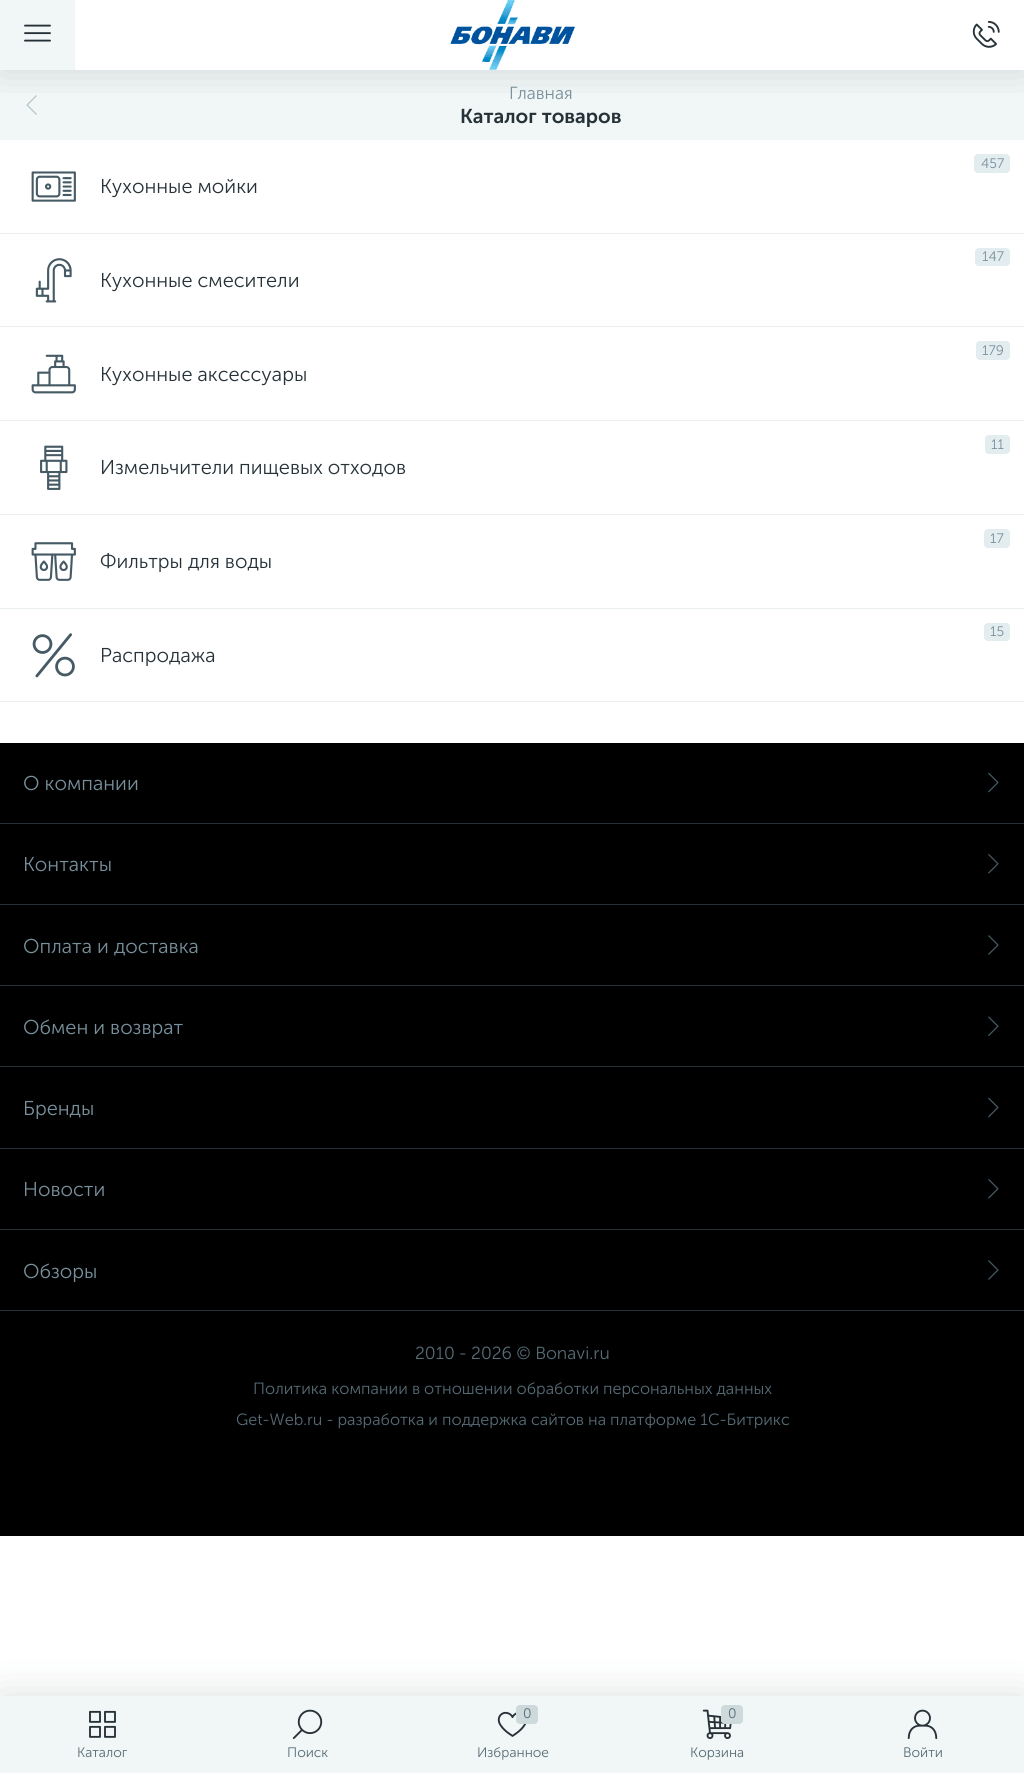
#include <cairo.h>
#include <math.h>
#include <stddef.h>

static cairo_t *ctx;

static void use_color(int r, int g, int b) {
    cairo_set_source_rgb(ctx, r / 255.0, g / 255.0, b / 255.0);
}

static void round_rect(double x, double y, double w, double h, double r) {
    cairo_new_sub_path(ctx);
    cairo_arc(ctx, x + w - r, y + h - r, r, 0, M_PI / 2);
    cairo_arc(ctx, x + r, y + h - r, r, M_PI / 2, M_PI);
    cairo_arc(ctx, x + r, y + r, r, M_PI, 1.5 * M_PI);
    cairo_arc(ctx, x + w - r, y + r, r, 1.5 * M_PI, 2 * M_PI);
    cairo_close_path(ctx);
}

static void shadow(double x, double y, double w, double h, double r, double blur, double alpha) {
    cairo_push_group_with_content(ctx, CAIRO_CONTENT_ALPHA);
    cairo_set_operator(ctx, CAIRO_OPERATOR_SOURCE);
    for (int i = 15; i >= -15 && fmin(w, h) + blur * i / 3 > 0; i -= 2) {
        double e = blur * i / 6;
        cairo_set_source_rgba(ctx, 0, 0, 0, alpha * erfc((i - 1) / 8.5) / 2);
        round_rect(x - e, y - e, w + 2 * e, h + 2 * e, fmax(0, fmin(r + e + blur * .6, fmin(w, h) / 2 + e)));
        cairo_fill(ctx);
    }
    cairo_pattern_t *soft = cairo_pop_group(ctx);
    cairo_mask(ctx, soft);
    cairo_pattern_destroy(soft);
}

static void picture(const char *path, double x, double y, double w, double h) {
    cairo_surface_t *image = cairo_image_surface_create_from_png(path);
    cairo_save(ctx);
    cairo_set_source_surface(ctx, image, x, y);
    cairo_rectangle(ctx, x, y, w, h);
    cairo_fill(ctx);
    cairo_restore(ctx);
    cairo_surface_destroy(image);
}

int main(void) {
    cairo_surface_t *surface = cairo_image_surface_create(CAIRO_FORMAT_RGB24, 1024, 1773);
    ctx = cairo_create(surface);
    cairo_font_options_t *options = cairo_font_options_create();
    cairo_font_options_set_hint_metrics(options, CAIRO_HINT_METRICS_OFF);
    cairo_font_options_set_hint_style(options, CAIRO_HINT_STYLE_NONE);
    cairo_set_font_options(ctx, options);
    cairo_set_miter_limit(ctx, 4);
    use_color(255, 255, 255);
    cairo_paint(ctx);
    use_color(241, 246, 247);
    cairo_rectangle(ctx, 0, 70, 1024, 70);
    cairo_fill(ctx);
    picture("img1.png", 26, 95, 11, 20);
    cairo_select_font_face(ctx, "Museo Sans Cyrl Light", CAIRO_FONT_SLANT_NORMAL, CAIRO_FONT_WEIGHT_NORMAL);
    cairo_set_font_size(ctx, 17.5);
    use_color(120, 144, 156);
    cairo_move_to(ctx, 509, 99);
    cairo_show_text(ctx, "Главная");
    cairo_select_font_face(ctx, "Museo Sans Cyrl SemiBold", CAIRO_FONT_SLANT_NORMAL, CAIRO_FONT_WEIGHT_NORMAL);
    cairo_set_font_size(ctx, 20);
    use_color(38, 50, 56);
    cairo_move_to(ctx, 460, 123);
    cairo_show_text(ctx, "Каталог товаров");
    use_color(232, 237, 239);
    cairo_rectangle(ctx, 0, 233, 1024, 1);
    cairo_fill(ctx);
    use_color(227, 236, 239);
    round_rect(974, 154, 36, 19, 4);
    cairo_fill(ctx);
    cairo_select_font_face(ctx, "Museo Sans Cyrl Light", CAIRO_FONT_SLANT_NORMAL, CAIRO_FONT_WEIGHT_NORMAL);
    cairo_set_font_size(ctx, 13.75);
    use_color(120, 144, 156);
    cairo_move_to(ctx, 981, 168);
    cairo_show_text(ctx, "457");
    picture("img2.png", 31, 171, 45, 31);
    cairo_set_font_size(ctx, 20);
    use_color(38, 50, 56);
    cairo_move_to(ctx, 100, 193);
    cairo_show_text(ctx, "Кухонные мойки");
    use_color(232, 237, 239);
    cairo_rectangle(ctx, 0, 326, 1024, 1);
    cairo_fill(ctx);
    use_color(227, 236, 239);
    round_rect(975, 248, 35, 18, 4);
    cairo_fill(ctx);
    cairo_set_font_size(ctx, 13.75);
    use_color(120, 144, 156);
    cairo_move_to(ctx, 982, 261);
    cairo_show_text(ctx, "147");
    picture("img3.png", 35, 258, 37, 45);
    cairo_set_font_size(ctx, 20);
    use_color(38, 50, 56);
    cairo_move_to(ctx, 100, 287);
    cairo_show_text(ctx, "Кухонные смесители");
    use_color(232, 237, 239);
    cairo_rectangle(ctx, 0, 420, 1024, 1);
    cairo_fill(ctx);
    use_color(227, 236, 239);
    round_rect(976, 341, 34, 19, 4);
    cairo_fill(ctx);
    cairo_set_font_size(ctx, 13.75);
    use_color(120, 144, 156);
    cairo_move_to(ctx, 982, 355);
    cairo_show_text(ctx, "179");
    picture("img4.png", 31, 354, 45, 40);
    cairo_set_font_size(ctx, 20);
    use_color(38, 50, 56);
    cairo_move_to(ctx, 100, 381);
    cairo_show_text(ctx, "Кухонные аксессуары");
    use_color(232, 237, 239);
    cairo_rectangle(ctx, 0, 514, 1024, 1);
    cairo_fill(ctx);
    use_color(227, 236, 239);
    round_rect(985, 435, 25, 19, 4);
    cairo_fill(ctx);
    cairo_set_font_size(ctx, 13.75);
    use_color(120, 144, 156);
    cairo_move_to(ctx, 991, 449);
    cairo_show_text(ctx, "11");
    picture("img5.png", 40, 445, 28, 45);
    cairo_set_font_size(ctx, 20);
    use_color(38, 50, 56);
    cairo_move_to(ctx, 100, 474);
    cairo_show_text(ctx, "Измельчители пищевых отходов");
    use_color(232, 237, 239);
    cairo_rectangle(ctx, 0, 608, 1024, 1);
    cairo_fill(ctx);
    use_color(227, 236, 239);
    round_rect(984, 529, 26, 19, 4);
    cairo_fill(ctx);
    cairo_set_font_size(ctx, 13.75);
    use_color(120, 144, 156);
    cairo_move_to(ctx, 990, 543);
    cairo_show_text(ctx, "17");
    picture("img6.png", 31, 542, 45, 39);
    cairo_set_font_size(ctx, 20);
    use_color(38, 50, 56);
    cairo_move_to(ctx, 100, 568);
    cairo_show_text(ctx, "Фильтры для воды");
    use_color(232, 237, 239);
    cairo_rectangle(ctx, 0, 701, 1024, 1);
    cairo_fill(ctx);
    use_color(227, 236, 239);
    round_rect(984, 623, 26, 18, 4);
    cairo_fill(ctx);
    cairo_set_font_size(ctx, 13.75);
    use_color(120, 144, 156);
    cairo_move_to(ctx, 990, 636);
    cairo_show_text(ctx, "15");
    picture("img7.png", 32, 633, 43, 45);
    cairo_set_font_size(ctx, 20);
    use_color(38, 50, 56);
    cairo_move_to(ctx, 100, 662);
    cairo_show_text(ctx, "Распродажа");
    use_color(0, 0, 0);
    cairo_rectangle(ctx, 0, 743, 1024, 567);
    cairo_fill(ctx);
    use_color(38, 50, 56);
    cairo_rectangle(ctx, 0, 823, 1024, 1);
    cairo_fill(ctx);
    use_color(120, 144, 156);
    cairo_move_to(ctx, 23, 790);
    cairo_show_text(ctx, "О компании");
    picture("img8.png", 988, 772, 11, 21);
    use_color(38, 50, 56);
    cairo_rectangle(ctx, 0, 904, 1024, 1);
    cairo_fill(ctx);
    use_color(120, 144, 156);
    cairo_move_to(ctx, 23, 871);
    cairo_show_text(ctx, "Контакты");
    picture("img9.png", 988, 854, 11, 20);
    use_color(38, 50, 56);
    cairo_rectangle(ctx, 0, 985, 1024, 1);
    cairo_fill(ctx);
    use_color(120, 144, 156);
    cairo_move_to(ctx, 23, 953);
    cairo_show_text(ctx, "Оплата и доставка");
    picture("img10.png", 988, 935, 11, 20);
    use_color(38, 50, 56);
    cairo_rectangle(ctx, 0, 1066, 1024, 1);
    cairo_fill(ctx);
    use_color(120, 144, 156);
    cairo_move_to(ctx, 23, 1034);
    cairo_show_text(ctx, "Обмен и возврат");
    picture("img11.png", 988, 1016, 11, 20);
    use_color(38, 50, 56);
    cairo_rectangle(ctx, 0, 1148, 1024, 1);
    cairo_fill(ctx);
    use_color(120, 144, 156);
    cairo_move_to(ctx, 23, 1115);
    cairo_show_text(ctx, "Бренды");
    picture("img8.png", 988, 1097, 11, 21);
    use_color(38, 50, 56);
    cairo_rectangle(ctx, 0, 1229, 1024, 1);
    cairo_fill(ctx);
    use_color(120, 144, 156);
    cairo_move_to(ctx, 23, 1196);
    cairo_show_text(ctx, "Новости");
    picture("img9.png", 988, 1179, 11, 20);
    use_color(38, 50, 56);
    cairo_rectangle(ctx, 0, 1310, 1024, 1);
    cairo_fill(ctx);
    use_color(120, 144, 156);
    cairo_move_to(ctx, 23, 1278);
    cairo_show_text(ctx, "Обзоры");
    picture("img10.png", 988, 1260, 11, 20);
    use_color(0, 0, 0);
    cairo_rectangle(ctx, 0, 1311, 1024, 225);
    cairo_fill(ctx);
    cairo_set_font_size(ctx, 17.5);
    use_color(86, 107, 117);
    cairo_move_to(ctx, 415, 1359);
    cairo_show_text(ctx, "2010 - 2026 © Bonavi.ru");
    cairo_set_font_size(ctx, 16.25);
    cairo_move_to(ctx, 253, 1394);
    cairo_show_text(ctx, "Политика компании в отношении обработки персональных данных");
    cairo_move_to(ctx, 236, 1425);
    cairo_show_text(ctx, "Get-Web.ru - разработка и поддержка сайтов на платформе 1С-Битрикс");
    cairo_save(ctx);
    cairo_rectangle(ctx, 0, 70, 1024, 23);
    cairo_clip(ctx);
    use_color(38, 50, 56);
    shadow(0, 0, 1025, 70, 0, 20, 0.16);
    cairo_restore(ctx);
    use_color(241, 246, 247);
    cairo_rectangle(ctx, 0, 0, 75, 70);
    cairo_fill(ctx);
    picture("img12.png", 24, 24, 27, 18);
    picture("img13.png", 450, 0, 125, 70);
    picture("img14.png", 972, 20, 28, 28);
    use_color(38, 50, 56);
    shadow(0, 1696, 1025, 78, 0, 20, 0.16);
    use_color(241, 246, 247);
    cairo_rectangle(ctx, 0, 1696, 1024, 77);
    cairo_fill(ctx);
    picture("img15.png", 89, 1710, 27, 28);
    cairo_set_font_size(ctx, 13.75);
    use_color(86, 107, 117);
    cairo_move_to(ctx, 77, 1757);
    cairo_show_text(ctx, "Каталог");
    picture("img16.png", 292, 1709, 31, 30);
    cairo_move_to(ctx, 287, 1757);
    cairo_show_text(ctx, "Поиск");
    picture("img17.png", 497, 1711, 29, 26);
    use_color(206, 217, 219);
    round_rect(516, 1705, 22, 19, 4);
    cairo_fill(ctx);
    use_color(86, 107, 117);
    cairo_move_to(ctx, 523, 1718);
    cairo_show_text(ctx, "0");
    cairo_move_to(ctx, 477, 1757);
    cairo_show_text(ctx, "Избранное");
    picture("img18.png", 702, 1709, 30, 30);
    use_color(206, 217, 219);
    round_rect(721, 1705, 22, 19, 4);
    cairo_fill(ctx);
    use_color(86, 107, 117);
    cairo_move_to(ctx, 728, 1718);
    cairo_show_text(ctx, "0");
    cairo_move_to(ctx, 690, 1757);
    cairo_show_text(ctx, "Корзина");
    picture("img19.png", 907, 1709, 31, 30);
    cairo_move_to(ctx, 903, 1757);
    cairo_show_text(ctx, "Войти");
    cairo_surface_write_to_png(surface, "result.png");
    cairo_font_options_destroy(options);
    cairo_destroy(ctx);
    cairo_surface_destroy(surface);
    return 0;
}
